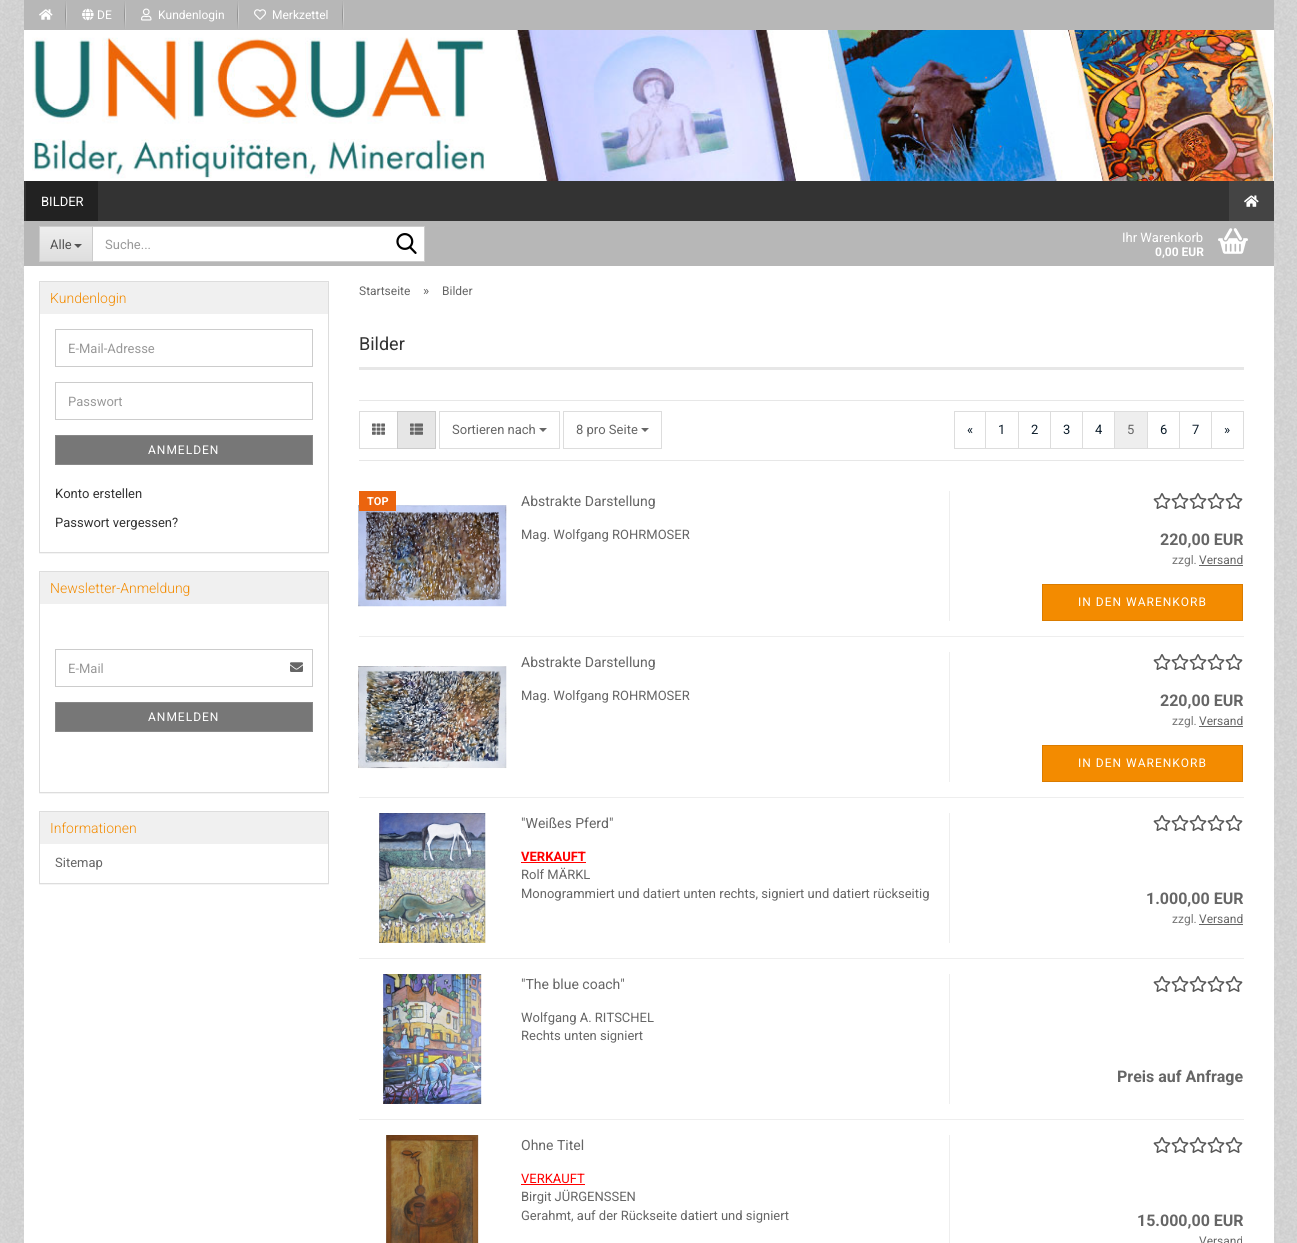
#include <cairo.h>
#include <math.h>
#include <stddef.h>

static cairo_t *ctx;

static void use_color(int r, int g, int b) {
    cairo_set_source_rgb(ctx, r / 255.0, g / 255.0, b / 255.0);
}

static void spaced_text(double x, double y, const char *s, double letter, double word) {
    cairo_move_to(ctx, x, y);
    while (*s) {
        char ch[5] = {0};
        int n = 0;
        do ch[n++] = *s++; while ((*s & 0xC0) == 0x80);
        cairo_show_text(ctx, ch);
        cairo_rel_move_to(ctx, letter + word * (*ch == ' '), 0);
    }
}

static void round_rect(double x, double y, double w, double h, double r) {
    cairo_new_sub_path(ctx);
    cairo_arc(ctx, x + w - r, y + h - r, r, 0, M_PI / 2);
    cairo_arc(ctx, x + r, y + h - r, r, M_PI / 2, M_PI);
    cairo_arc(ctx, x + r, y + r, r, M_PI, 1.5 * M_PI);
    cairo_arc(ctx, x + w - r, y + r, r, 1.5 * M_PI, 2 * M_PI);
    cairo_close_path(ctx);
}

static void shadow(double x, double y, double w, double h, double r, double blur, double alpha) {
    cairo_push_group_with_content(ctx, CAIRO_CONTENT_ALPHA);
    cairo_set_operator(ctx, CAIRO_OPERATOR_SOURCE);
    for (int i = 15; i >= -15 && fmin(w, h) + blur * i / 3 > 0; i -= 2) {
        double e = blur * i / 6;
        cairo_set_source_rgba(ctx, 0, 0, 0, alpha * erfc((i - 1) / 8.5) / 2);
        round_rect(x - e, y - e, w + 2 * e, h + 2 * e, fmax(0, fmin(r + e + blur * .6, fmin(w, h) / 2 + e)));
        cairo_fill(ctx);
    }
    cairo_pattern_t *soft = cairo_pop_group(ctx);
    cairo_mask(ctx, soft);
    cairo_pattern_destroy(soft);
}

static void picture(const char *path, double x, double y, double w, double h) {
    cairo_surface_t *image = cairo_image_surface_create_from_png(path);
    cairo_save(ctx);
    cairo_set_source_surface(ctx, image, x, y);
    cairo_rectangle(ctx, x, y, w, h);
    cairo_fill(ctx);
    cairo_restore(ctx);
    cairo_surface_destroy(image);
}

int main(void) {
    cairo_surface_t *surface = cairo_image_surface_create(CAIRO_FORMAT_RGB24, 1297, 1243);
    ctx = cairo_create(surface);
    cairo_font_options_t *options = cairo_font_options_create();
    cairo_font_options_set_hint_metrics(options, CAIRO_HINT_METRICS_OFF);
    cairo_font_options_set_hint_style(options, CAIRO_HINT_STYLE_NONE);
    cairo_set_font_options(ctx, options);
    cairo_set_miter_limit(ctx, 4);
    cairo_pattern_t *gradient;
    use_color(221, 221, 221);
    cairo_paint(ctx);
    picture("img1.png", 0, 0, 1297, 1243);
    use_color(255, 255, 255);
    cairo_rectangle(ctx, 24, 30, 1250, 1213);
    cairo_fill(ctx);
    use_color(183, 183, 183);
    cairo_rectangle(ctx, 24, 0, 1250, 30);
    cairo_fill(ctx);
    picture("img2.png", 65, 1, 2, 28);
    picture("img3.png", 39, 9, 14, 11);
    picture("img2.png", 124, 1, 2, 28);
    picture("img4.png", 82, 8, 12, 13);
    cairo_select_font_face(ctx, "Roboto", CAIRO_FONT_SLANT_NORMAL, CAIRO_FONT_WEIGHT_NORMAL);
    cairo_set_font_size(ctx, 12);
    use_color(255, 255, 255);
    cairo_move_to(ctx, 97, 19);
    cairo_show_text(ctx, "DE");
    picture("img2.png", 237, 1, 2, 28);
    picture("img5.png", 141, 8, 11, 13);
    cairo_move_to(ctx, 158, 19);
    cairo_show_text(ctx, "Kundenlogin");
    picture("img2.png", 342, 1, 2, 28);
    picture("img6.png", 254, 9, 12, 11);
    cairo_move_to(ctx, 272, 19);
    cairo_show_text(ctx, "Merkzettel");
    picture("img7.png", 32, 30, 1241, 151);
    use_color(51, 51, 51);
    cairo_rectangle(ctx, 24, 181, 1205, 40);
    cairo_fill(ctx);
    use_color(34, 34, 34);
    cairo_rectangle(ctx, 26, 181, 72, 40);
    cairo_fill(ctx);
    cairo_set_font_size(ctx, 13);
    use_color(255, 255, 255);
    cairo_move_to(ctx, 41, 206);
    cairo_show_text(ctx, "BILDER");
    use_color(68, 68, 68);
    cairo_rectangle(ctx, 1229, 181, 45, 40);
    cairo_fill(ctx);
    picture("img8.png", 1244, 195, 15, 12);
    use_color(183, 183, 183);
    cairo_rectangle(ctx, 24, 221, 1250, 45);
    cairo_fill(ctx);
    gradient = cairo_pattern_create_linear(66, 227, 66, 261);
    cairo_pattern_add_color_stop_rgba(gradient, 0, 0.933, 0.933, 0.933, 1);
    cairo_pattern_add_color_stop_rgba(gradient, 1, 0.871, 0.871, 0.871, 1);
    cairo_set_source(ctx, gradient);
    cairo_pattern_destroy(gradient);
    cairo_rectangle(ctx, 40, 227, 52, 34);
    cairo_fill(ctx);
    use_color(204, 204, 204);
    cairo_rectangle(ctx, 39, 226, 53, 1);
    cairo_fill(ctx);
    cairo_rectangle(ctx, 39, 261, 53, 1);
    cairo_fill(ctx);
    cairo_rectangle(ctx, 39, 226, 1, 36);
    cairo_fill(ctx);
    use_color(85, 85, 85);
    cairo_move_to(ctx, 50, 249);
    cairo_show_text(ctx, "Alle");
    cairo_new_path(ctx);
    cairo_move_to(ctx, 74, 244);
    cairo_line_to(ctx, 82, 244);
    cairo_line_to(ctx, 78, 248);
    cairo_close_path(ctx);
    cairo_fill(ctx);
    use_color(255, 255, 255);
    cairo_rectangle(ctx, 92.5, 226.5, 332, 35);
    cairo_fill_preserve(ctx);
    use_color(204, 204, 204);
    cairo_set_line_width(ctx, 1);
    cairo_stroke(ctx);
    use_color(153, 153, 153);
    cairo_move_to(ctx, 105, 249);
    cairo_show_text(ctx, "Suche...");
    picture("img9.png", 396, 233, 21, 21);
    use_color(255, 255, 255);
    cairo_move_to(ctx, 1122, 242);
    cairo_show_text(ctx, "Ihr Warenkorb");
    cairo_select_font_face(ctx, "Roboto", CAIRO_FONT_SLANT_NORMAL, CAIRO_FONT_WEIGHT_BOLD);
    cairo_set_font_size(ctx, 12);
    cairo_move_to(ctx, 1155, 256);
    cairo_show_text(ctx, "0,00 EUR");
    picture("img10.png", 1218, 228, 30, 26);
    cairo_save(ctx);
    cairo_rectangle(ctx, 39, 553, 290, 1);
    cairo_clip(ctx);
    use_color(0, 0, 0);
    shadow(39, 282, 290, 272, 0, 0.5, 0.05);
    cairo_restore(ctx);
    cairo_rectangle(ctx, 39.5, 281.5, 289, 271);
    use_color(221, 221, 221);
    cairo_stroke(ctx);
    use_color(240, 240, 240);
    cairo_new_path(ctx);
    cairo_move_to(ctx, 41, 282);
    cairo_line_to(ctx, 327, 282);
    cairo_curve_to(ctx, 327.5, 282, 328, 282.5, 328, 283);
    cairo_line_to(ctx, 328, 314);
    cairo_line_to(ctx, 40, 314);
    cairo_line_to(ctx, 40, 283);
    cairo_curve_to(ctx, 40, 282.5, 40.5, 282, 41, 282);
    cairo_close_path(ctx);
    cairo_fill(ctx);
    cairo_select_font_face(ctx, "Roboto Light", CAIRO_FONT_SLANT_NORMAL, CAIRO_FONT_WEIGHT_NORMAL);
    cairo_set_font_size(ctx, 14);
    use_color(243, 139, 0);
    cairo_move_to(ctx, 50, 303);
    cairo_show_text(ctx, "Kundenlogin");
    cairo_rectangle(ctx, 55.5, 329.5, 257, 37);
    use_color(204, 204, 204);
    cairo_stroke(ctx);
    cairo_select_font_face(ctx, "Roboto", CAIRO_FONT_SLANT_NORMAL, CAIRO_FONT_WEIGHT_NORMAL);
    cairo_set_font_size(ctx, 13);
    use_color(153, 153, 153);
    cairo_move_to(ctx, 68, 353);
    cairo_show_text(ctx, "E-Mail-Adresse");
    cairo_rectangle(ctx, 55.5, 382.5, 257, 37);
    use_color(204, 204, 204);
    cairo_stroke(ctx);
    use_color(153, 153, 153);
    cairo_move_to(ctx, 68, 406);
    cairo_show_text(ctx, "Passwort");
    use_color(119, 119, 119);
    cairo_rectangle(ctx, 55.5, 435.5, 257, 29);
    cairo_fill_preserve(ctx);
    use_color(136, 136, 136);
    cairo_stroke(ctx);
    cairo_set_font_size(ctx, 12);
    use_color(255, 255, 255);
    spaced_text(148, 454, "ANMELDEN", 1, 0);
    cairo_set_font_size(ctx, 13);
    use_color(51, 51, 51);
    cairo_move_to(ctx, 55, 498);
    cairo_show_text(ctx, "Konto erstellen");
    cairo_move_to(ctx, 55, 527);
    cairo_show_text(ctx, "Passwort vergessen?");
    cairo_save(ctx);
    cairo_rectangle(ctx, 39, 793, 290, 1);
    cairo_clip(ctx);
    use_color(0, 0, 0);
    shadow(39, 572, 290, 222, 0, 0.5, 0.05);
    cairo_restore(ctx);
    cairo_rectangle(ctx, 39.5, 571.5, 289, 221);
    use_color(221, 221, 221);
    cairo_stroke(ctx);
    use_color(240, 240, 240);
    cairo_new_path(ctx);
    cairo_move_to(ctx, 41, 572);
    cairo_line_to(ctx, 327, 572);
    cairo_curve_to(ctx, 327.5, 572, 328, 572.5, 328, 573);
    cairo_line_to(ctx, 328, 604);
    cairo_line_to(ctx, 40, 604);
    cairo_line_to(ctx, 40, 573);
    cairo_curve_to(ctx, 40, 572.5, 40.5, 572, 41, 572);
    cairo_close_path(ctx);
    cairo_fill(ctx);
    cairo_select_font_face(ctx, "Roboto Light", CAIRO_FONT_SLANT_NORMAL, CAIRO_FONT_WEIGHT_NORMAL);
    cairo_set_font_size(ctx, 14);
    use_color(243, 139, 0);
    cairo_move_to(ctx, 50, 593);
    cairo_show_text(ctx, "Newsletter-Anmeldung");
    cairo_rectangle(ctx, 55.5, 649.5, 257, 37);
    use_color(204, 204, 204);
    cairo_stroke(ctx);
    cairo_select_font_face(ctx, "Roboto", CAIRO_FONT_SLANT_NORMAL, CAIRO_FONT_WEIGHT_NORMAL);
    cairo_set_font_size(ctx, 13);
    use_color(153, 153, 153);
    cairo_move_to(ctx, 68, 673);
    cairo_show_text(ctx, "E-Mail");
    picture("img11.png", 290, 662, 13, 10);
    use_color(119, 119, 119);
    cairo_rectangle(ctx, 55.5, 702.5, 257, 29);
    cairo_fill_preserve(ctx);
    use_color(136, 136, 136);
    cairo_stroke(ctx);
    cairo_set_font_size(ctx, 12);
    use_color(255, 255, 255);
    spaced_text(148, 721, "ANMELDEN", 1, 0);
    cairo_save(ctx);
    cairo_rectangle(ctx, 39, 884, 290, 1);
    cairo_clip(ctx);
    use_color(0, 0, 0);
    shadow(39, 812, 290, 73, 0, 0.5, 0.05);
    cairo_restore(ctx);
    cairo_rectangle(ctx, 39.5, 811.5, 289, 72);
    use_color(221, 221, 221);
    cairo_stroke(ctx);
    use_color(240, 240, 240);
    cairo_new_path(ctx);
    cairo_move_to(ctx, 41, 812);
    cairo_line_to(ctx, 327, 812);
    cairo_curve_to(ctx, 327.5, 812, 328, 812.5, 328, 813);
    cairo_line_to(ctx, 328, 844);
    cairo_line_to(ctx, 40, 844);
    cairo_line_to(ctx, 40, 813);
    cairo_curve_to(ctx, 40, 812.5, 40.5, 812, 41, 812);
    cairo_close_path(ctx);
    cairo_fill(ctx);
    cairo_select_font_face(ctx, "Roboto Light", CAIRO_FONT_SLANT_NORMAL, CAIRO_FONT_WEIGHT_NORMAL);
    cairo_set_font_size(ctx, 14);
    use_color(243, 139, 0);
    cairo_move_to(ctx, 50, 833);
    cairo_show_text(ctx, "Informationen");
    cairo_select_font_face(ctx, "Roboto", CAIRO_FONT_SLANT_NORMAL, CAIRO_FONT_WEIGHT_NORMAL);
    cairo_set_font_size(ctx, 13);
    use_color(102, 102, 102);
    cairo_move_to(ctx, 55, 867);
    cairo_show_text(ctx, "Sitemap");
    cairo_set_font_size(ctx, 12);
    cairo_move_to(ctx, 359, 295);
    cairo_show_text(ctx, "Startseite");
    cairo_set_font_size(ctx, 13);
    cairo_move_to(ctx, 423, 295);
    cairo_show_text(ctx, "»");
    cairo_set_font_size(ctx, 12);
    cairo_move_to(ctx, 442, 295);
    cairo_show_text(ctx, "Bilder");
    use_color(231, 231, 231);
    cairo_rectangle(ctx, 359, 367, 885, 3);
    cairo_fill(ctx);
    cairo_set_font_size(ctx, 18);
    use_color(51, 51, 51);
    cairo_move_to(ctx, 359, 350);
    cairo_show_text(ctx, "Bilder");
    use_color(231, 231, 231);
    cairo_rectangle(ctx, 359, 400, 885, 1);
    cairo_fill(ctx);
    cairo_rectangle(ctx, 359, 460, 885, 1);
    cairo_fill(ctx);
    cairo_rectangle(ctx, 359.5, 411.5, 38, 37);
    use_color(221, 221, 221);
    cairo_stroke(ctx);
    picture("img12.png", 372, 423, 13, 12);
    use_color(230, 230, 230);
    cairo_rectangle(ctx, 397.5, 411.5, 38, 37);
    cairo_fill_preserve(ctx);
    use_color(204, 204, 204);
    cairo_stroke(ctx);
    picture("img13.png", 410, 423, 13, 12);
    cairo_rectangle(ctx, 439.5, 411.5, 120, 37);
    use_color(221, 221, 221);
    cairo_stroke(ctx);
    cairo_set_font_size(ctx, 13);
    use_color(102, 102, 102);
    cairo_move_to(ctx, 452, 434);
    cairo_show_text(ctx, "Sortieren nach");
    cairo_new_path(ctx);
    cairo_move_to(ctx, 539, 428);
    cairo_line_to(ctx, 547, 428);
    cairo_line_to(ctx, 543, 432);
    cairo_close_path(ctx);
    cairo_fill(ctx);
    cairo_rectangle(ctx, 563.5, 411.5, 98, 37);
    use_color(221, 221, 221);
    cairo_stroke(ctx);
    use_color(102, 102, 102);
    cairo_move_to(ctx, 576, 434);
    cairo_show_text(ctx, "8 pro Seite");
    cairo_new_path(ctx);
    cairo_move_to(ctx, 641, 428);
    cairo_line_to(ctx, 649, 428);
    cairo_line_to(ctx, 645, 432);
    cairo_close_path(ctx);
    cairo_fill(ctx);
    cairo_rectangle(ctx, 954.5, 411.5, 31, 37);
    use_color(221, 221, 221);
    cairo_stroke(ctx);
    use_color(12, 29, 43);
    cairo_move_to(ctx, 967, 434);
    cairo_show_text(ctx, "«");
    cairo_rectangle(ctx, 985.5, 411.5, 33, 37);
    use_color(221, 221, 221);
    cairo_stroke(ctx);
    use_color(12, 29, 43);
    cairo_move_to(ctx, 998, 434);
    cairo_show_text(ctx, "1");
    cairo_rectangle(ctx, 1018.5, 411.5, 32, 37);
    use_color(221, 221, 221);
    cairo_stroke(ctx);
    use_color(12, 29, 43);
    cairo_move_to(ctx, 1031, 434);
    cairo_show_text(ctx, "2");
    cairo_rectangle(ctx, 1050.5, 411.5, 32, 37);
    use_color(221, 221, 221);
    cairo_stroke(ctx);
    use_color(12, 29, 43);
    cairo_move_to(ctx, 1063, 434);
    cairo_show_text(ctx, "3");
    cairo_rectangle(ctx, 1082.5, 411.5, 32, 37);
    use_color(221, 221, 221);
    cairo_stroke(ctx);
    use_color(12, 29, 43);
    cairo_move_to(ctx, 1095, 434);
    cairo_show_text(ctx, "4");
    use_color(238, 238, 238);
    cairo_rectangle(ctx, 1114.5, 411.5, 33, 37);
    cairo_fill_preserve(ctx);
    use_color(221, 221, 221);
    cairo_stroke(ctx);
    use_color(102, 102, 102);
    cairo_move_to(ctx, 1127, 434);
    cairo_show_text(ctx, "5");
    cairo_rectangle(ctx, 1147.5, 411.5, 32, 37);
    use_color(221, 221, 221);
    cairo_stroke(ctx);
    use_color(12, 29, 43);
    cairo_move_to(ctx, 1160, 434);
    cairo_show_text(ctx, "6");
    cairo_rectangle(ctx, 1179.5, 411.5, 32, 37);
    use_color(221, 221, 221);
    cairo_stroke(ctx);
    use_color(12, 29, 43);
    cairo_move_to(ctx, 1192, 434);
    cairo_show_text(ctx, "7");
    cairo_rectangle(ctx, 1211.5, 411.5, 32, 37);
    use_color(221, 221, 221);
    cairo_stroke(ctx);
    use_color(12, 29, 43);
    cairo_move_to(ctx, 1224, 434);
    cairo_show_text(ctx, "»");
    use_color(238, 238, 238);
    cairo_rectangle(ctx, 359, 636, 885, 1);
    cairo_fill(ctx);
    picture("img14.png", 358, 505, 149, 102);
    use_color(235, 100, 14);
    cairo_rectangle(ctx, 359, 491, 37, 20);
    cairo_fill(ctx);
    cairo_select_font_face(ctx, "Roboto", CAIRO_FONT_SLANT_NORMAL, CAIRO_FONT_WEIGHT_BOLD);
    cairo_set_font_size(ctx, 11);
    use_color(255, 255, 255);
    cairo_move_to(ctx, 367, 505);
    cairo_show_text(ctx, "TOP");
    cairo_select_font_face(ctx, "Roboto", CAIRO_FONT_SLANT_NORMAL, CAIRO_FONT_WEIGHT_NORMAL);
    cairo_set_font_size(ctx, 14);
    use_color(102, 102, 102);
    cairo_move_to(ctx, 521, 506);
    cairo_show_text(ctx, "Abstrakte Darstellung");
    cairo_set_font_size(ctx, 13);
    cairo_move_to(ctx, 521, 539);
    cairo_show_text(ctx, "Mag. Wolfgang ROHRMOSER");
    use_color(238, 238, 238);
    cairo_rectangle(ctx, 949, 491, 1, 130);
    cairo_fill(ctx);
    picture("img15.png", 1153, 493, 18, 16);
    picture("img15.png", 1171, 493, 18, 16);
    picture("img15.png", 1189, 493, 18, 16);
    picture("img15.png", 1207, 493, 18, 16);
    picture("img15.png", 1225, 493, 18, 16);
    cairo_select_font_face(ctx, "Roboto", CAIRO_FONT_SLANT_NORMAL, CAIRO_FONT_WEIGHT_BOLD);
    cairo_set_font_size(ctx, 16);
    use_color(102, 102, 102);
    cairo_move_to(ctx, 1160, 545);
    cairo_show_text(ctx, "220,00 EUR");
    cairo_select_font_face(ctx, "Roboto", CAIRO_FONT_SLANT_NORMAL, CAIRO_FONT_WEIGHT_NORMAL);
    cairo_set_font_size(ctx, 12);
    use_color(119, 119, 119);
    cairo_move_to(ctx, 1172, 564);
    cairo_show_text(ctx, "zzgl.");
    use_color(102, 102, 102);
    cairo_move_to(ctx, 1199, 564);
    cairo_show_text(ctx, "Versand");
    cairo_rectangle(ctx, 1199, 565, 44, 1);
    cairo_fill(ctx);
    use_color(243, 139, 0);
    cairo_rectangle(ctx, 1042.5, 584.5, 200, 36);
    cairo_fill_preserve(ctx);
    use_color(218, 124, 0);
    cairo_stroke(ctx);
    use_color(255, 255, 255);
    spaced_text(1078, 606, "IN DEN WARENKORB", 1, 0);
    use_color(238, 238, 238);
    cairo_rectangle(ctx, 359, 797, 885, 1);
    cairo_fill(ctx);
    picture("img16.png", 358, 666, 149, 103);
    cairo_set_font_size(ctx, 14);
    use_color(102, 102, 102);
    cairo_move_to(ctx, 521, 667);
    cairo_show_text(ctx, "Abstrakte Darstellung");
    cairo_set_font_size(ctx, 13);
    cairo_move_to(ctx, 521, 700);
    cairo_show_text(ctx, "Mag. Wolfgang ROHRMOSER");
    use_color(238, 238, 238);
    cairo_rectangle(ctx, 949, 652, 1, 130);
    cairo_fill(ctx);
    picture("img15.png", 1153, 654, 18, 16);
    picture("img15.png", 1171, 654, 18, 16);
    picture("img15.png", 1189, 654, 18, 16);
    picture("img15.png", 1207, 654, 18, 16);
    picture("img15.png", 1225, 654, 18, 16);
    cairo_select_font_face(ctx, "Roboto", CAIRO_FONT_SLANT_NORMAL, CAIRO_FONT_WEIGHT_BOLD);
    cairo_set_font_size(ctx, 16);
    use_color(102, 102, 102);
    cairo_move_to(ctx, 1160, 706);
    cairo_show_text(ctx, "220,00 EUR");
    cairo_select_font_face(ctx, "Roboto", CAIRO_FONT_SLANT_NORMAL, CAIRO_FONT_WEIGHT_NORMAL);
    cairo_set_font_size(ctx, 12);
    use_color(119, 119, 119);
    cairo_move_to(ctx, 1172, 725);
    cairo_show_text(ctx, "zzgl.");
    use_color(102, 102, 102);
    cairo_move_to(ctx, 1199, 725);
    cairo_show_text(ctx, "Versand");
    cairo_rectangle(ctx, 1199, 726, 44, 1);
    cairo_fill(ctx);
    use_color(243, 139, 0);
    cairo_rectangle(ctx, 1042.5, 745.5, 200, 36);
    cairo_fill_preserve(ctx);
    use_color(218, 124, 0);
    cairo_stroke(ctx);
    use_color(255, 255, 255);
    spaced_text(1078, 767, "IN DEN WARENKORB", 1, 0);
    use_color(238, 238, 238);
    cairo_rectangle(ctx, 359, 958, 885, 1);
    cairo_fill(ctx);
    picture("img17.png", 379, 813, 107, 130);
    cairo_set_font_size(ctx, 14);
    use_color(102, 102, 102);
    cairo_move_to(ctx, 521, 828);
    cairo_show_text(ctx, "\"Weißes Pferd\"");
    cairo_select_font_face(ctx, "Roboto", CAIRO_FONT_SLANT_NORMAL, CAIRO_FONT_WEIGHT_BOLD);
    cairo_set_font_size(ctx, 13);
    use_color(255, 0, 0);
    cairo_move_to(ctx, 521, 861);
    cairo_show_text(ctx, "VERKAUFT");
    cairo_rectangle(ctx, 521, 862, 65, 1);
    cairo_fill(ctx);
    cairo_select_font_face(ctx, "Roboto", CAIRO_FONT_SLANT_NORMAL, CAIRO_FONT_WEIGHT_NORMAL);
    use_color(102, 102, 102);
    cairo_move_to(ctx, 521, 879);
    cairo_show_text(ctx, "Rolf MÄRKL");
    cairo_move_to(ctx, 521, 898);
    cairo_show_text(ctx, "Monogrammiert und datiert unten rechts, signiert und datiert rückseitig");
    use_color(238, 238, 238);
    cairo_rectangle(ctx, 949, 813, 1, 130);
    cairo_fill(ctx);
    picture("img15.png", 1153, 815, 18, 16);
    picture("img15.png", 1171, 815, 18, 16);
    picture("img15.png", 1189, 815, 18, 16);
    picture("img15.png", 1207, 815, 18, 16);
    picture("img15.png", 1225, 815, 18, 16);
    cairo_select_font_face(ctx, "Roboto", CAIRO_FONT_SLANT_NORMAL, CAIRO_FONT_WEIGHT_BOLD);
    cairo_set_font_size(ctx, 16);
    use_color(102, 102, 102);
    cairo_move_to(ctx, 1146, 904);
    cairo_show_text(ctx, "1.000,00 EUR");
    cairo_select_font_face(ctx, "Roboto", CAIRO_FONT_SLANT_NORMAL, CAIRO_FONT_WEIGHT_NORMAL);
    cairo_set_font_size(ctx, 12);
    use_color(119, 119, 119);
    cairo_move_to(ctx, 1172, 923);
    cairo_show_text(ctx, "zzgl.");
    use_color(102, 102, 102);
    cairo_move_to(ctx, 1199, 923);
    cairo_show_text(ctx, "Versand");
    cairo_rectangle(ctx, 1199, 924, 44, 1);
    cairo_fill(ctx);
    use_color(238, 238, 238);
    cairo_rectangle(ctx, 359, 1119, 885, 1);
    cairo_fill(ctx);
    picture("img18.png", 383, 974, 99, 130);
    cairo_set_font_size(ctx, 14);
    use_color(102, 102, 102);
    cairo_move_to(ctx, 521, 989);
    cairo_show_text(ctx, "\"The blue coach\"");
    cairo_set_font_size(ctx, 13);
    cairo_move_to(ctx, 521, 1022);
    cairo_show_text(ctx, "Wolfgang A. RITSCHEL");
    cairo_move_to(ctx, 521, 1040);
    cairo_show_text(ctx, "Rechts unten signiert");
    use_color(238, 238, 238);
    cairo_rectangle(ctx, 949, 974, 1, 130);
    cairo_fill(ctx);
    picture("img15.png", 1153, 976, 18, 16);
    picture("img15.png", 1171, 976, 18, 16);
    picture("img15.png", 1189, 976, 18, 16);
    picture("img15.png", 1207, 976, 18, 16);
    picture("img15.png", 1225, 976, 18, 16);
    cairo_select_font_face(ctx, "Roboto", CAIRO_FONT_SLANT_NORMAL, CAIRO_FONT_WEIGHT_BOLD);
    cairo_set_font_size(ctx, 16);
    use_color(102, 102, 102);
    cairo_move_to(ctx, 1117, 1082);
    cairo_show_text(ctx, "Preis auf Anfrage");
    picture("img19.png", 386, 1135, 93, 108);
    cairo_select_font_face(ctx, "Roboto", CAIRO_FONT_SLANT_NORMAL, CAIRO_FONT_WEIGHT_NORMAL);
    cairo_set_font_size(ctx, 14);
    cairo_move_to(ctx, 521, 1150);
    cairo_show_text(ctx, "Ohne Titel");
    cairo_set_font_size(ctx, 13);
    use_color(255, 0, 0);
    cairo_move_to(ctx, 521, 1183);
    cairo_show_text(ctx, "VERKAUFT");
    cairo_rectangle(ctx, 521, 1184, 64, 1);
    cairo_fill(ctx);
    use_color(102, 102, 102);
    cairo_move_to(ctx, 521, 1201);
    cairo_show_text(ctx, "Birgit JÜRGENSSEN");
    cairo_move_to(ctx, 521, 1220);
    cairo_show_text(ctx, "Gerahmt, auf der Rückseite datiert und signiert");
    use_color(238, 238, 238);
    cairo_rectangle(ctx, 949, 1135, 1, 108);
    cairo_fill(ctx);
    picture("img15.png", 1153, 1137, 18, 16);
    picture("img15.png", 1171, 1137, 18, 16);
    picture("img15.png", 1189, 1137, 18, 16);
    picture("img15.png", 1207, 1137, 18, 16);
    picture("img15.png", 1225, 1137, 18, 16);
    cairo_select_font_face(ctx, "Roboto", CAIRO_FONT_SLANT_NORMAL, CAIRO_FONT_WEIGHT_BOLD);
    cairo_set_font_size(ctx, 16);
    use_color(102, 102, 102);
    cairo_move_to(ctx, 1137, 1226);
    cairo_show_text(ctx, "15.000,00 EUR");
    cairo_select_font_face(ctx, "Roboto", CAIRO_FONT_SLANT_NORMAL, CAIRO_FONT_WEIGHT_NORMAL);
    cairo_set_font_size(ctx, 12);
    cairo_move_to(ctx, 1199, 1245);
    cairo_show_text(ctx, "Versand");
    cairo_surface_write_to_png(surface, "result.png");
    cairo_font_options_destroy(options);
    cairo_destroy(ctx);
    cairo_surface_destroy(surface);
    return 0;
}
